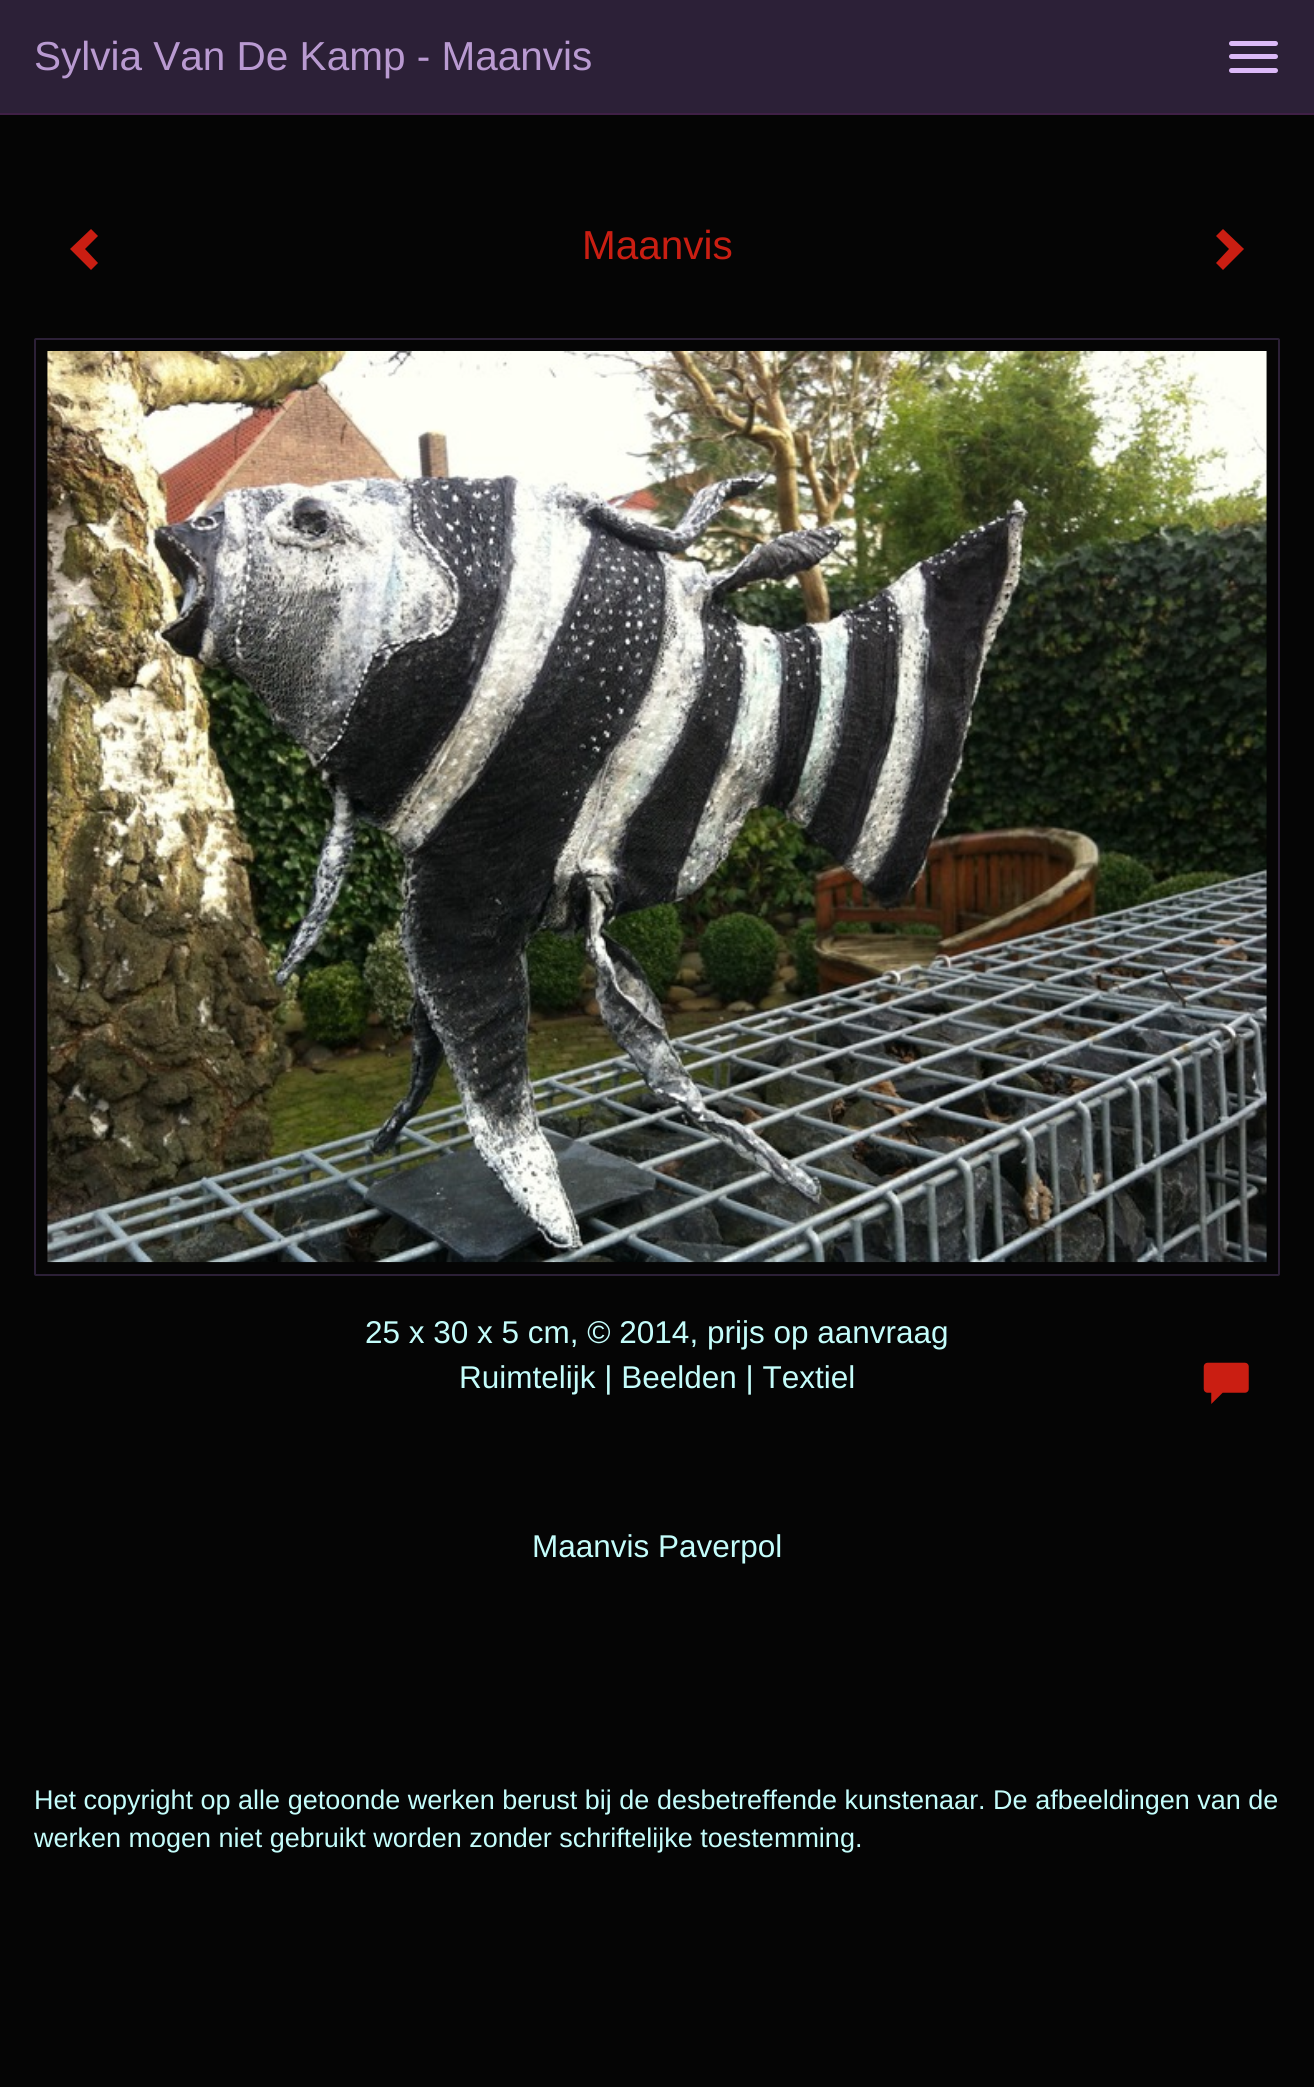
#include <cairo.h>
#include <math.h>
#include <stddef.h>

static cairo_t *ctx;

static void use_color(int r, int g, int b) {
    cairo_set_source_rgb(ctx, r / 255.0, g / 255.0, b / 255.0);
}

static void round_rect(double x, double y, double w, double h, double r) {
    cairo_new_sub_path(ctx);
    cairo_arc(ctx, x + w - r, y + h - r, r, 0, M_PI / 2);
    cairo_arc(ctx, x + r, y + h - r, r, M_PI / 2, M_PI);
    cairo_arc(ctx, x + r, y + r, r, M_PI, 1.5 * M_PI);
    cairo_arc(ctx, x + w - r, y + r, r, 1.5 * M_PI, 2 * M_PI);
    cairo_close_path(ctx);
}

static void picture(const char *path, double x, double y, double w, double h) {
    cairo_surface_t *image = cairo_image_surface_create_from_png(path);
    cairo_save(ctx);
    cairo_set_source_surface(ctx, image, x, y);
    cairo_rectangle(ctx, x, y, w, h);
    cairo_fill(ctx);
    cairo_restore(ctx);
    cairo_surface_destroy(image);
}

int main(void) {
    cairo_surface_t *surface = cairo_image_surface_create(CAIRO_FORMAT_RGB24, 1314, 2087);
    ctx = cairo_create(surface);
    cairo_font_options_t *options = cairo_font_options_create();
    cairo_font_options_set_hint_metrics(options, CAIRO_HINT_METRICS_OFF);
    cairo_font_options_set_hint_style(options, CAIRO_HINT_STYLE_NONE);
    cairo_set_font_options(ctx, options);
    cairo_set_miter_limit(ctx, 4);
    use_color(5, 5, 5);
    cairo_paint(ctx);
    use_color(44, 32, 55);
    cairo_rectangle(ctx, 0, 0, 1314, 113);
    cairo_fill(ctx);
    use_color(64, 32, 70);
    cairo_rectangle(ctx, 0, 113, 1314, 2);
    cairo_fill(ctx);
    cairo_select_font_face(ctx, "Liberation Sans", CAIRO_FONT_SLANT_NORMAL, CAIRO_FONT_WEIGHT_NORMAL);
    cairo_set_font_size(ctx, 40.5);
    use_color(185, 154, 209);
    cairo_move_to(ctx, 34, 70);
    cairo_show_text(ctx, "Sylvia Van De Kamp - Maanvis");
    use_color(220, 185, 248);
    round_rect(1229, 41, 49, 5, 2.5);
    cairo_fill(ctx);
    round_rect(1229, 54, 49, 5, 2.5);
    cairo_fill(ctx);
    round_rect(1229, 68, 49, 5, 2.5);
    cairo_fill(ctx);
    use_color(202, 30, 18);
    cairo_new_path(ctx);
    cairo_move_to(ctx, 98, 236);
    cairo_line_to(ctx, 85, 249);
    cairo_line_to(ctx, 98, 263);
    cairo_line_to(ctx, 91, 270);
    cairo_line_to(ctx, 70, 249);
    cairo_line_to(ctx, 91, 229);
    cairo_close_path(ctx);
    cairo_fill(ctx);
    cairo_move_to(ctx, 582, 259);
    cairo_show_text(ctx, "Maanvis");
    cairo_new_path(ctx);
    cairo_move_to(ctx, 1244, 249);
    cairo_line_to(ctx, 1223, 270);
    cairo_line_to(ctx, 1216, 263);
    cairo_line_to(ctx, 1229, 249);
    cairo_line_to(ctx, 1216, 236);
    cairo_line_to(ctx, 1223, 229);
    cairo_close_path(ctx);
    cairo_fill(ctx);
    round_rect(35, 339, 1244, 936, 1);
    use_color(44, 32, 55);
    cairo_stroke(ctx);
    picture("img1.png", 47, 351, 1220, 912);
    cairo_set_font_size(ctx, 31.5);
    use_color(196, 253, 251);
    cairo_move_to(ctx, 365, 1343);
    cairo_show_text(ctx, "25 x 30 x 5 cm, © 2014, prijs op aanvraag");
    cairo_move_to(ctx, 459, 1388);
    cairo_show_text(ctx, "Ruimtelijk | Beelden | Textiel");
    picture("img2.png", 1203, 1362, 46, 42);
    cairo_move_to(ctx, 532, 1557);
    cairo_show_text(ctx, "Maanvis Paverpol");
    cairo_set_font_size(ctx, 27);
    cairo_move_to(ctx, 34, 1809);
    cairo_show_text(ctx, "Het copyright op alle getoonde werken berust bij de desbetreffende kunstenaar. De afbeeldingen van de");
    cairo_move_to(ctx, 34, 1847);
    cairo_show_text(ctx, "werken mogen niet gebruikt worden zonder schriftelijke toestemming.");
    cairo_surface_write_to_png(surface, "result.png");
    cairo_font_options_destroy(options);
    cairo_destroy(ctx);
    cairo_surface_destroy(surface);
    return 0;
}
